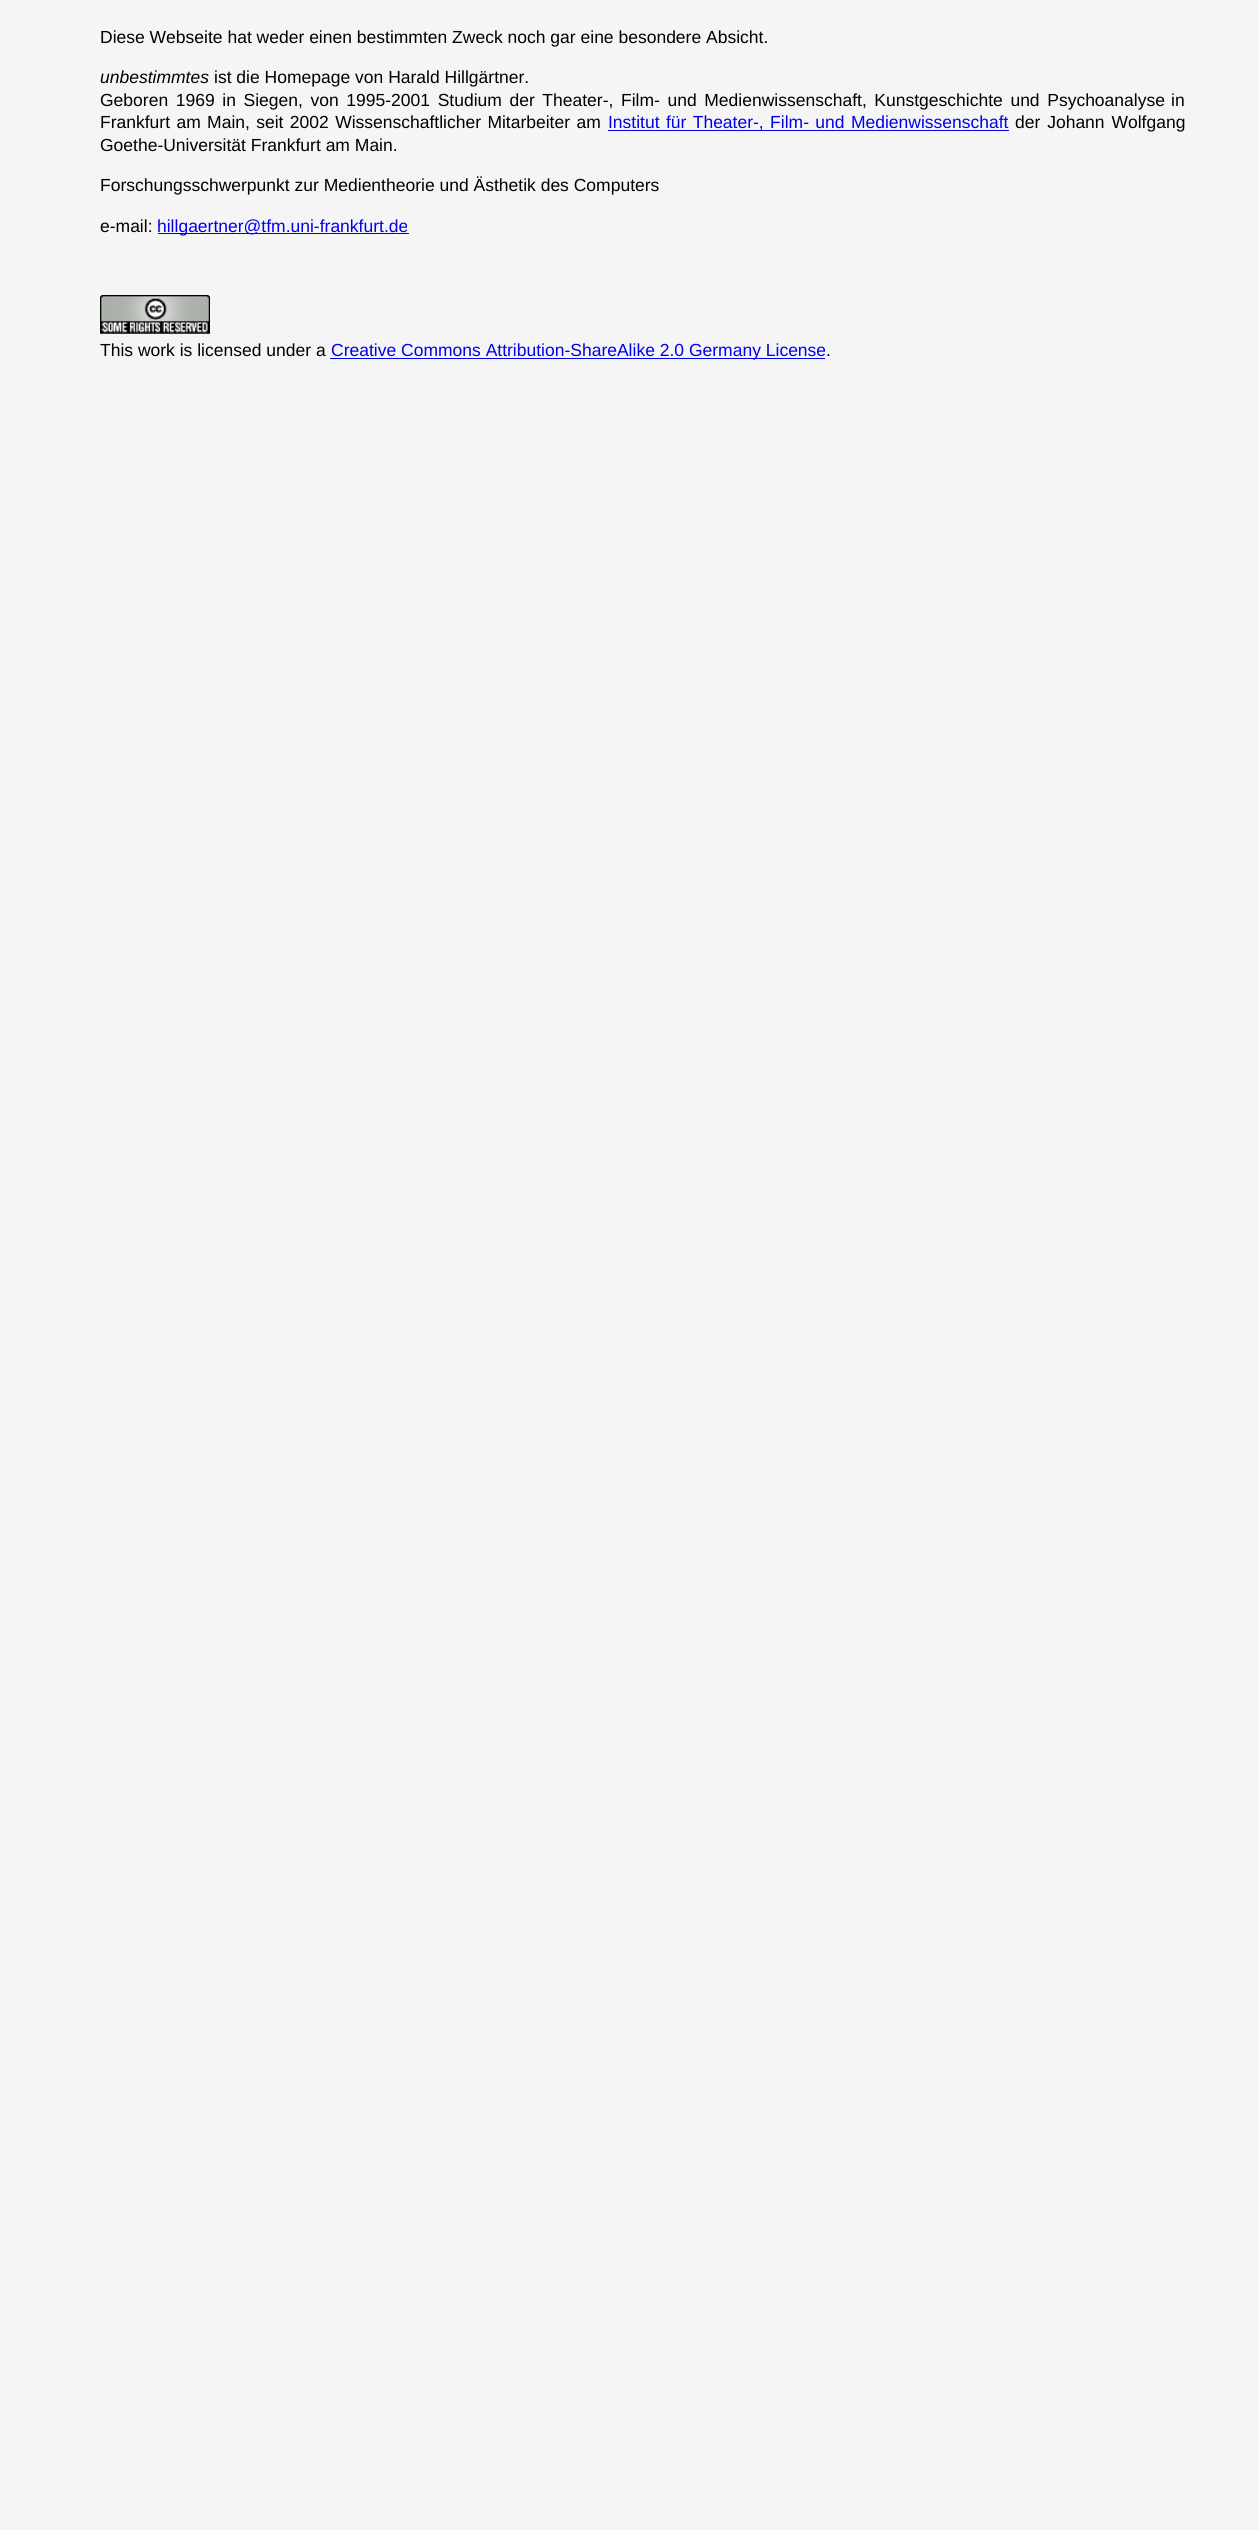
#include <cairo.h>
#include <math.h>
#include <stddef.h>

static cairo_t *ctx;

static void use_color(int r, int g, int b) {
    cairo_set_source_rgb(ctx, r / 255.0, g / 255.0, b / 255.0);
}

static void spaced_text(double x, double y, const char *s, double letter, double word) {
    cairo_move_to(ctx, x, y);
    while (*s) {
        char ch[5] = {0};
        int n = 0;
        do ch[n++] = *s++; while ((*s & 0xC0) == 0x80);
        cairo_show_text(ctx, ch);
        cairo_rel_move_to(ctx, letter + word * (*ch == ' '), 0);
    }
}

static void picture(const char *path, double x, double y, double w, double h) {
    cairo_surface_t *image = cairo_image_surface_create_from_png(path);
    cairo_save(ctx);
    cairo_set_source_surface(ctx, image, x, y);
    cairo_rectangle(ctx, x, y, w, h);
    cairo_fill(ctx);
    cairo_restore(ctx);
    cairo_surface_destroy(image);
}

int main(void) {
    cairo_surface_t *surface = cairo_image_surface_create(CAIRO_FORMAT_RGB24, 1259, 2530);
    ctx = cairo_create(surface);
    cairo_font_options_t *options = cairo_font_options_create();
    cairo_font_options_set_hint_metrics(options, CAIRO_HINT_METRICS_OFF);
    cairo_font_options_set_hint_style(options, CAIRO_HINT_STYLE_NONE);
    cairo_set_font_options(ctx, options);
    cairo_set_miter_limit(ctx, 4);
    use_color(245, 245, 245);
    cairo_paint(ctx);
    cairo_select_font_face(ctx, "Liberation Sans", CAIRO_FONT_SLANT_NORMAL, CAIRO_FONT_WEIGHT_NORMAL);
    cairo_set_font_size(ctx, 17.5);
    use_color(0, 0, 0);
    cairo_move_to(ctx, 100, 43);
    cairo_show_text(ctx, "Diese Webseite hat weder einen bestimmten Zweck noch gar eine besondere Absicht.");
    cairo_select_font_face(ctx, "Liberation Sans", CAIRO_FONT_SLANT_ITALIC, CAIRO_FONT_WEIGHT_NORMAL);
    cairo_move_to(ctx, 100, 83);
    cairo_show_text(ctx, "unbestimmtes");
    cairo_select_font_face(ctx, "Liberation Sans", CAIRO_FONT_SLANT_NORMAL, CAIRO_FONT_WEIGHT_NORMAL);
    cairo_move_to(ctx, 214, 83);
    cairo_show_text(ctx, "ist die Homepage von Harald Hillgärtner.");
    spaced_text(100, 106, "Geboren 1969 in Siegen, von 1995-2001 Studium der Theater-, Film- und Medienwissenschaft, Kunstgeschichte und Psychoanalyse", 0, 2.75);
    cairo_move_to(ctx, 1171, 106);
    cairo_show_text(ctx, "in");
    spaced_text(100, 128, "Frankfurt am Main, seit 2002 Wissenschaftlicher Mitarbeiter am", 0, 1.5);
    use_color(0, 0, 238);
    cairo_rectangle(ctx, 608, 130, 401, 1);
    cairo_fill(ctx);
    spaced_text(608, 128, "Institut für Theater-, Film- und Medienwissenschaft", 0, 1.5);
    use_color(0, 0, 0);
    spaced_text(1015, 128, "der Johann Wolfgang", 0, 2);
    cairo_move_to(ctx, 100, 151);
    cairo_show_text(ctx, "Goethe-Universität Frankfurt am Main.");
    cairo_move_to(ctx, 100, 191);
    cairo_show_text(ctx, "Forschungsschwerpunkt zur Medientheorie und Ästhetik des Computers");
    cairo_move_to(ctx, 100, 232);
    cairo_show_text(ctx, "e-mail:");
    use_color(0, 0, 238);
    cairo_rectangle(ctx, 158, 233, 251, 1);
    cairo_fill(ctx);
    cairo_move_to(ctx, 157, 232);
    cairo_show_text(ctx, "hillgaertner@tfm.uni-frankfurt.de");
    picture("img1.png", 100, 295, 110, 39);
    use_color(0, 0, 0);
    cairo_move_to(ctx, 100, 356);
    cairo_show_text(ctx, "This work is licensed under a");
    use_color(0, 0, 238);
    cairo_rectangle(ctx, 330, 358, 495, 1);
    cairo_fill(ctx);
    cairo_move_to(ctx, 331, 356);
    cairo_show_text(ctx, "Creative Commons Attribution-ShareAlike 2.0 Germany License");
    use_color(0, 0, 0);
    cairo_move_to(ctx, 826, 356);
    cairo_show_text(ctx, ".");
    cairo_surface_write_to_png(surface, "result.png");
    cairo_font_options_destroy(options);
    cairo_destroy(ctx);
    cairo_surface_destroy(surface);
    return 0;
}
